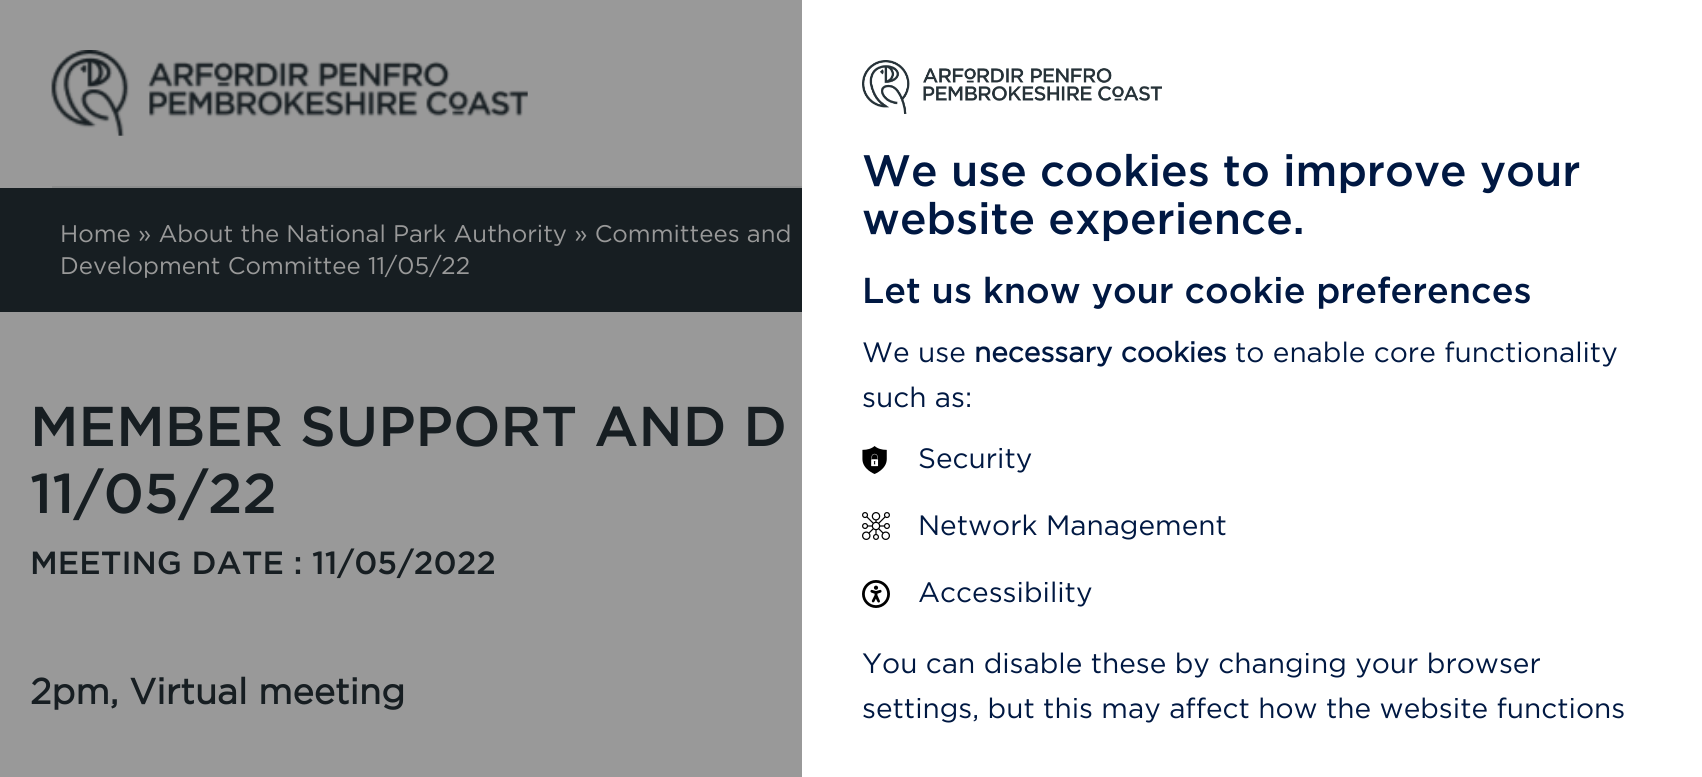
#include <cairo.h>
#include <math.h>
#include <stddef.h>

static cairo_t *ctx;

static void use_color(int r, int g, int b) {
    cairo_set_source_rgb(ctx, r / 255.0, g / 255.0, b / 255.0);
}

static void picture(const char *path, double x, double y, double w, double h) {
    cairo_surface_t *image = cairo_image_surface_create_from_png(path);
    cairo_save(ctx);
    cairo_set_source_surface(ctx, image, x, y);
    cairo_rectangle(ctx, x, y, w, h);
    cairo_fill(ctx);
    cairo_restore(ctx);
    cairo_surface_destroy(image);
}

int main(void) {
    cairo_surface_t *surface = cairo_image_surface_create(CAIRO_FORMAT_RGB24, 1702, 777);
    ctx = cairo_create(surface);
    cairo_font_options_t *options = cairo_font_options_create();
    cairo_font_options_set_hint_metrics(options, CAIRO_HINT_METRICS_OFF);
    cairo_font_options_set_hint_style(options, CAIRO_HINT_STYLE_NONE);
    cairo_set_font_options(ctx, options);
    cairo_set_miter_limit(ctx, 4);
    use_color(153, 153, 153);
    cairo_paint(ctx);
    use_color(141, 142, 142);
    cairo_rectangle(ctx, 52, 186, 750, 2);
    cairo_fill(ctx);
    picture("img1.png", 51, 50, 477, 86);
    use_color(23, 30, 34);
    cairo_rectangle(ctx, 0, 188, 802, 124);
    cairo_fill(ctx);
    cairo_select_font_face(ctx, "Gotham", CAIRO_FONT_SLANT_NORMAL, CAIRO_FONT_WEIGHT_NORMAL);
    cairo_set_font_size(ctx, 24);
    use_color(153, 153, 153);
    cairo_move_to(ctx, 60, 242);
    cairo_show_text(ctx, "Home » About the National Park Authority » Committees and");
    cairo_move_to(ctx, 60, 274);
    cairo_show_text(ctx, "Development Committee 11/05/22");
    cairo_select_font_face(ctx, "Gotham Medium", CAIRO_FONT_SLANT_NORMAL, CAIRO_FONT_WEIGHT_NORMAL);
    cairo_set_font_size(ctx, 56);
    use_color(23, 30, 34);
    cairo_move_to(ctx, 30, 446);
    cairo_show_text(ctx, "MEMBER SUPPORT AND D");
    cairo_move_to(ctx, 30, 513);
    cairo_show_text(ctx, "11/05/22");
    cairo_set_font_size(ctx, 32);
    cairo_move_to(ctx, 30, 574);
    cairo_show_text(ctx, "MEETING DATE : 11/05/2022");
    cairo_select_font_face(ctx, "Gotham", CAIRO_FONT_SLANT_NORMAL, CAIRO_FONT_WEIGHT_BOLD);
    cairo_set_font_size(ctx, 36);
    cairo_move_to(ctx, 30, 704);
    cairo_show_text(ctx, "2pm, Virtual meeting");
    use_color(255, 255, 255);
    cairo_rectangle(ctx, 802, 0, 900, 777);
    cairo_fill(ctx);
    picture("img2.png", 862, 60, 300, 54);
    cairo_select_font_face(ctx, "Gotham Medium", CAIRO_FONT_SLANT_NORMAL, CAIRO_FONT_WEIGHT_NORMAL);
    cairo_set_font_size(ctx, 44);
    use_color(0, 24, 66);
    cairo_move_to(ctx, 862, 186);
    cairo_show_text(ctx, "We use cookies to improve your");
    cairo_move_to(ctx, 862, 234);
    cairo_show_text(ctx, "website experience.");
    cairo_set_font_size(ctx, 36);
    cairo_move_to(ctx, 862, 303);
    cairo_show_text(ctx, "Let us know your cookie preferences");
    cairo_select_font_face(ctx, "Gotham", CAIRO_FONT_SLANT_NORMAL, CAIRO_FONT_WEIGHT_NORMAL);
    cairo_set_font_size(ctx, 28);
    cairo_move_to(ctx, 862, 362);
    cairo_show_text(ctx, "We use");
    cairo_select_font_face(ctx, "Gotham", CAIRO_FONT_SLANT_NORMAL, CAIRO_FONT_WEIGHT_BOLD);
    cairo_move_to(ctx, 974, 362);
    cairo_show_text(ctx, "necessary cookies");
    cairo_select_font_face(ctx, "Gotham", CAIRO_FONT_SLANT_NORMAL, CAIRO_FONT_WEIGHT_NORMAL);
    cairo_move_to(ctx, 1235, 362);
    cairo_show_text(ctx, "to enable core functionality");
    cairo_move_to(ctx, 862, 407);
    cairo_show_text(ctx, "such as:");
    picture("img3.png", 862, 446, 25, 28);
    cairo_move_to(ctx, 918, 468);
    cairo_show_text(ctx, "Security");
    picture("img4.png", 862, 512, 28, 28);
    cairo_move_to(ctx, 918, 535);
    cairo_show_text(ctx, "Network Management");
    picture("img5.png", 862, 580, 28, 28);
    cairo_move_to(ctx, 918, 602);
    cairo_show_text(ctx, "Accessibility");
    cairo_move_to(ctx, 862, 673);
    cairo_show_text(ctx, "You can disable these by changing your browser");
    cairo_move_to(ctx, 862, 718);
    cairo_show_text(ctx, "settings, but this may affect how the website functions");
    cairo_surface_write_to_png(surface, "result.png");
    cairo_font_options_destroy(options);
    cairo_destroy(ctx);
    cairo_surface_destroy(surface);
    return 0;
}
